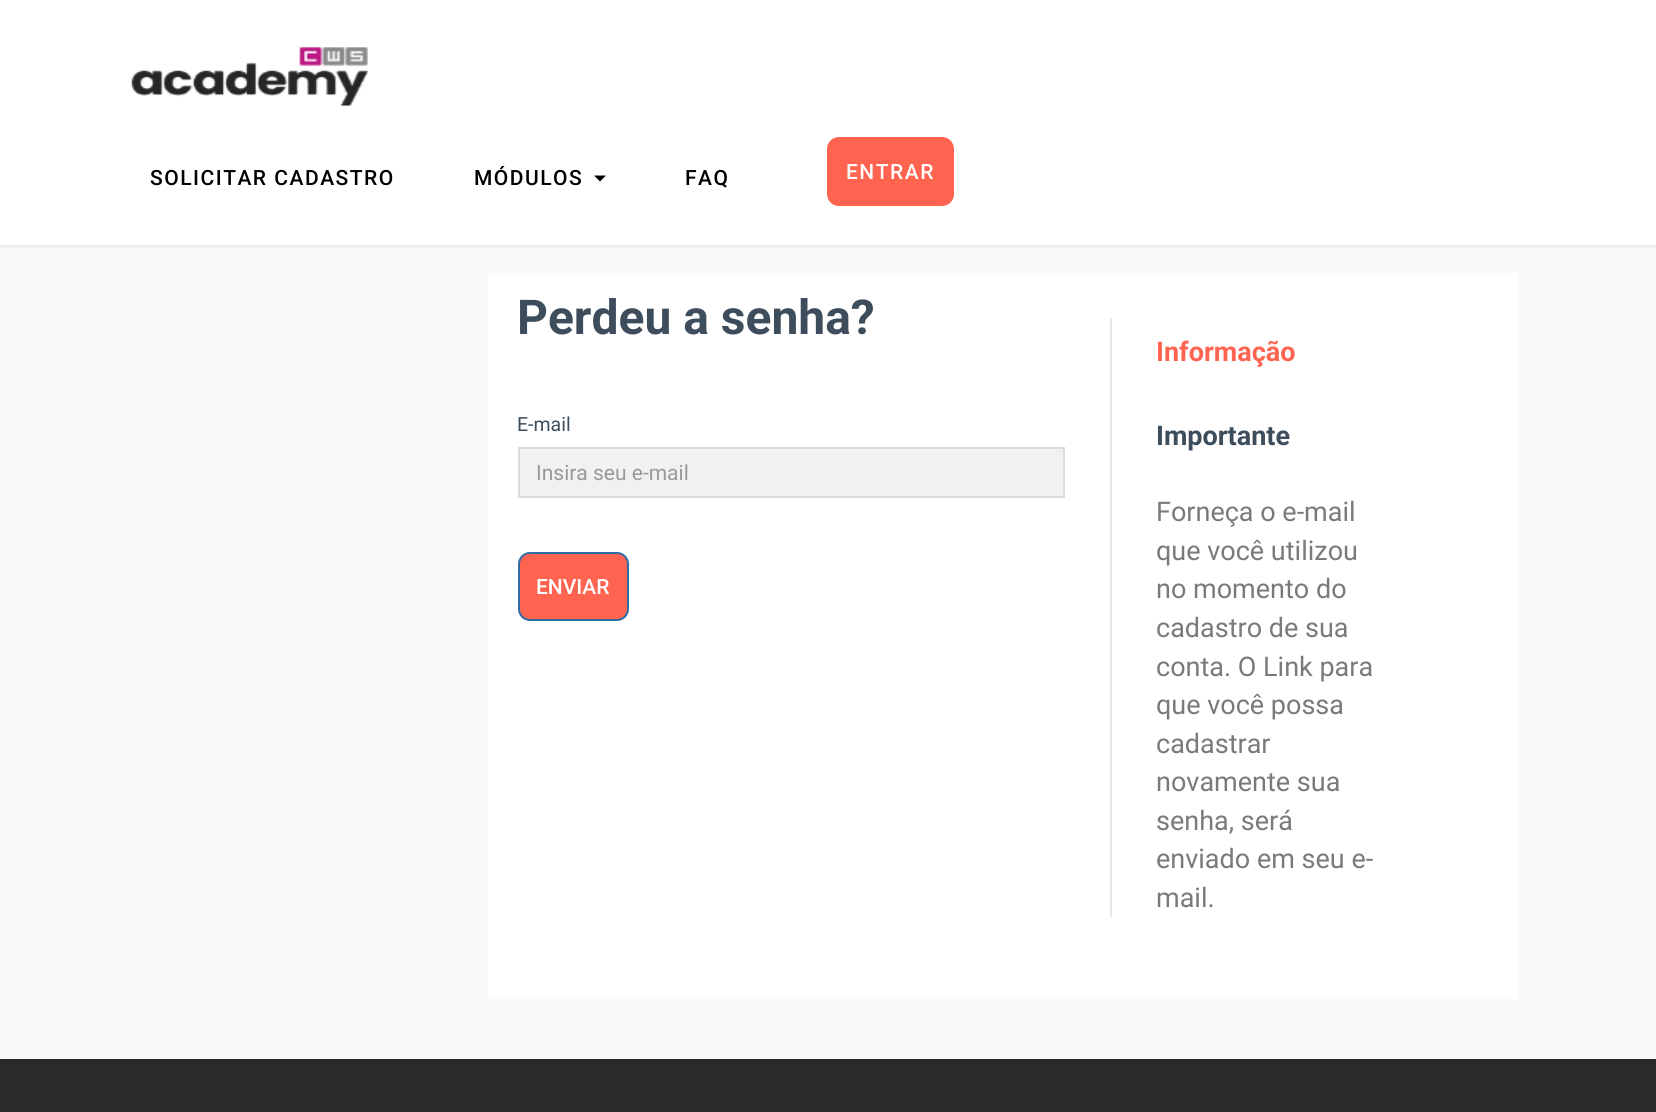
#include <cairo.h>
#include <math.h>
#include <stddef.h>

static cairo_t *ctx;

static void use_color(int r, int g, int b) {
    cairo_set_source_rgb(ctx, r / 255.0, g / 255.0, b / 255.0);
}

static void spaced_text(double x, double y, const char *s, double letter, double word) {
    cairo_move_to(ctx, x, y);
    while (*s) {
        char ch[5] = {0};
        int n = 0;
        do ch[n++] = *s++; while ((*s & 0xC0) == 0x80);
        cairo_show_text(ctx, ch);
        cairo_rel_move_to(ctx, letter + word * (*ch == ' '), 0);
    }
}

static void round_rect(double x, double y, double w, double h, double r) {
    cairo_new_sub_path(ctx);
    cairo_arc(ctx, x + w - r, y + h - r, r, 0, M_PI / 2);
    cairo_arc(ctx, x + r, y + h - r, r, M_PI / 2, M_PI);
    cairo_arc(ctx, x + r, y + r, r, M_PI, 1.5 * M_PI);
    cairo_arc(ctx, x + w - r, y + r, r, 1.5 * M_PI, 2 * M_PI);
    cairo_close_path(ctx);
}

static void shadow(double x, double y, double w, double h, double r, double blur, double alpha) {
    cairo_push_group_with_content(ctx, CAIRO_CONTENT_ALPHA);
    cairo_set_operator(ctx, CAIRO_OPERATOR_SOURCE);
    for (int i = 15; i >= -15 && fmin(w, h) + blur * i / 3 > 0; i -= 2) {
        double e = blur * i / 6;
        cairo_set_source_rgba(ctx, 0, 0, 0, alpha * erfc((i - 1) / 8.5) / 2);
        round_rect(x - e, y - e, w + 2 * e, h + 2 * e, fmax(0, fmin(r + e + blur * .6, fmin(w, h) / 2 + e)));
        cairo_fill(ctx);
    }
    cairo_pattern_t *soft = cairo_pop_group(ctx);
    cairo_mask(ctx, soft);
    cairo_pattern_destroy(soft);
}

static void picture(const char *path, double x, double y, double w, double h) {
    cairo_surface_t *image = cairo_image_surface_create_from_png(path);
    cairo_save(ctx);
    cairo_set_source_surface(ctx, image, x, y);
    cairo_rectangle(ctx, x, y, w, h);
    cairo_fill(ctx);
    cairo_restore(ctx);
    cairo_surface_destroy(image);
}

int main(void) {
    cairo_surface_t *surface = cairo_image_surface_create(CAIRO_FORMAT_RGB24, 1656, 1112);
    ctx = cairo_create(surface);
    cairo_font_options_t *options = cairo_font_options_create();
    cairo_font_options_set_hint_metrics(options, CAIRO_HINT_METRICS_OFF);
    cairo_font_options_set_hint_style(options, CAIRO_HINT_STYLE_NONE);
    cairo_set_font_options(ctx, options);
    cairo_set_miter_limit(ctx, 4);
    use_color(249, 249, 249);
    cairo_paint(ctx);
    use_color(221, 221, 221);
    shadow(0, 0, 1656, 246, 0, 2, 1);
    use_color(255, 255, 255);
    cairo_rectangle(ctx, 0, 0, 1656, 245);
    cairo_fill(ctx);
    picture("img1.png", 131, 47, 237, 59);
    cairo_select_font_face(ctx, "Roboto Medium", CAIRO_FONT_SLANT_NORMAL, CAIRO_FONT_WEIGHT_NORMAL);
    cairo_set_font_size(ctx, 21);
    use_color(0, 0, 0);
    spaced_text(150, 185, "SOLICITAR CADASTRO", 1.5, 0);
    spaced_text(474, 185, "MÓDULOS", 1.5, 0);
    cairo_new_path(ctx);
    cairo_move_to(ctx, 594, 175.5);
    cairo_line_to(ctx, 606, 175.5);
    cairo_line_to(ctx, 600, 181.5);
    cairo_close_path(ctx);
    cairo_fill(ctx);
    spaced_text(685, 185, "FAQ", 1.5, 0);
    use_color(255, 100, 80);
    round_rect(827, 137, 127, 69, 12);
    cairo_fill(ctx);
    use_color(255, 255, 255);
    spaced_text(846, 179, "ENTRAR", 1.5, 0);
    cairo_rectangle(ctx, 488, 273, 1030, 726);
    cairo_fill(ctx);
    cairo_select_font_face(ctx, "Roboto", CAIRO_FONT_SLANT_NORMAL, CAIRO_FONT_WEIGHT_BOLD);
    cairo_set_font_size(ctx, 48);
    use_color(62, 77, 92);
    cairo_move_to(ctx, 517, 334);
    cairo_show_text(ctx, "Perdeu a senha?");
    cairo_select_font_face(ctx, "Roboto", CAIRO_FONT_SLANT_NORMAL, CAIRO_FONT_WEIGHT_NORMAL);
    cairo_set_font_size(ctx, 19.5);
    cairo_move_to(ctx, 517, 431);
    cairo_show_text(ctx, "E-mail");
    use_color(241, 241, 241);
    cairo_rectangle(ctx, 519, 448, 545, 49);
    cairo_fill_preserve(ctx);
    use_color(219, 219, 219);
    cairo_stroke(ctx);
    cairo_set_font_size(ctx, 21);
    use_color(153, 153, 153);
    cairo_move_to(ctx, 536, 480);
    cairo_show_text(ctx, "Insira seu e-mail");
    use_color(255, 100, 80);
    round_rect(519, 553, 109, 67, 11);
    cairo_fill_preserve(ctx);
    use_color(46, 109, 164);
    cairo_stroke(ctx);
    cairo_select_font_face(ctx, "Roboto Medium", CAIRO_FONT_SLANT_NORMAL, CAIRO_FONT_WEIGHT_NORMAL);
    use_color(255, 255, 255);
    cairo_move_to(ctx, 536, 594);
    cairo_show_text(ctx, "ENVIAR");
    use_color(228, 230, 232);
    cairo_rectangle(ctx, 1110, 318, 2, 599);
    cairo_fill(ctx);
    cairo_select_font_face(ctx, "Roboto", CAIRO_FONT_SLANT_NORMAL, CAIRO_FONT_WEIGHT_BOLD);
    cairo_set_font_size(ctx, 27);
    use_color(255, 100, 80);
    cairo_move_to(ctx, 1156, 361);
    cairo_show_text(ctx, "Informação");
    use_color(62, 77, 92);
    cairo_move_to(ctx, 1156, 445);
    cairo_show_text(ctx, "Importante");
    cairo_select_font_face(ctx, "Roboto", CAIRO_FONT_SLANT_NORMAL, CAIRO_FONT_WEIGHT_NORMAL);
    use_color(122, 122, 122);
    cairo_move_to(ctx, 1156, 521);
    cairo_show_text(ctx, "Forneça o e-mail");
    cairo_move_to(ctx, 1156, 560);
    cairo_show_text(ctx, "que você utilizou");
    cairo_move_to(ctx, 1156, 598);
    cairo_show_text(ctx, "no momento do");
    cairo_move_to(ctx, 1156, 637);
    cairo_show_text(ctx, "cadastro de sua");
    cairo_move_to(ctx, 1156, 676);
    cairo_show_text(ctx, "conta. O Link para");
    cairo_move_to(ctx, 1156, 714);
    cairo_show_text(ctx, "que você possa");
    cairo_move_to(ctx, 1156, 753);
    cairo_show_text(ctx, "cadastrar");
    cairo_move_to(ctx, 1156, 791);
    cairo_show_text(ctx, "novamente sua");
    cairo_move_to(ctx, 1156, 830);
    cairo_show_text(ctx, "senha, será");
    cairo_move_to(ctx, 1156, 868);
    cairo_show_text(ctx, "enviado em seu e-");
    cairo_move_to(ctx, 1156, 907);
    cairo_show_text(ctx, "mail.");
    use_color(42, 42, 42);
    cairo_rectangle(ctx, 0, 1059, 1656, 53);
    cairo_fill(ctx);
    cairo_surface_write_to_png(surface, "result.png");
    cairo_font_options_destroy(options);
    cairo_destroy(ctx);
    cairo_surface_destroy(surface);
    return 0;
}
